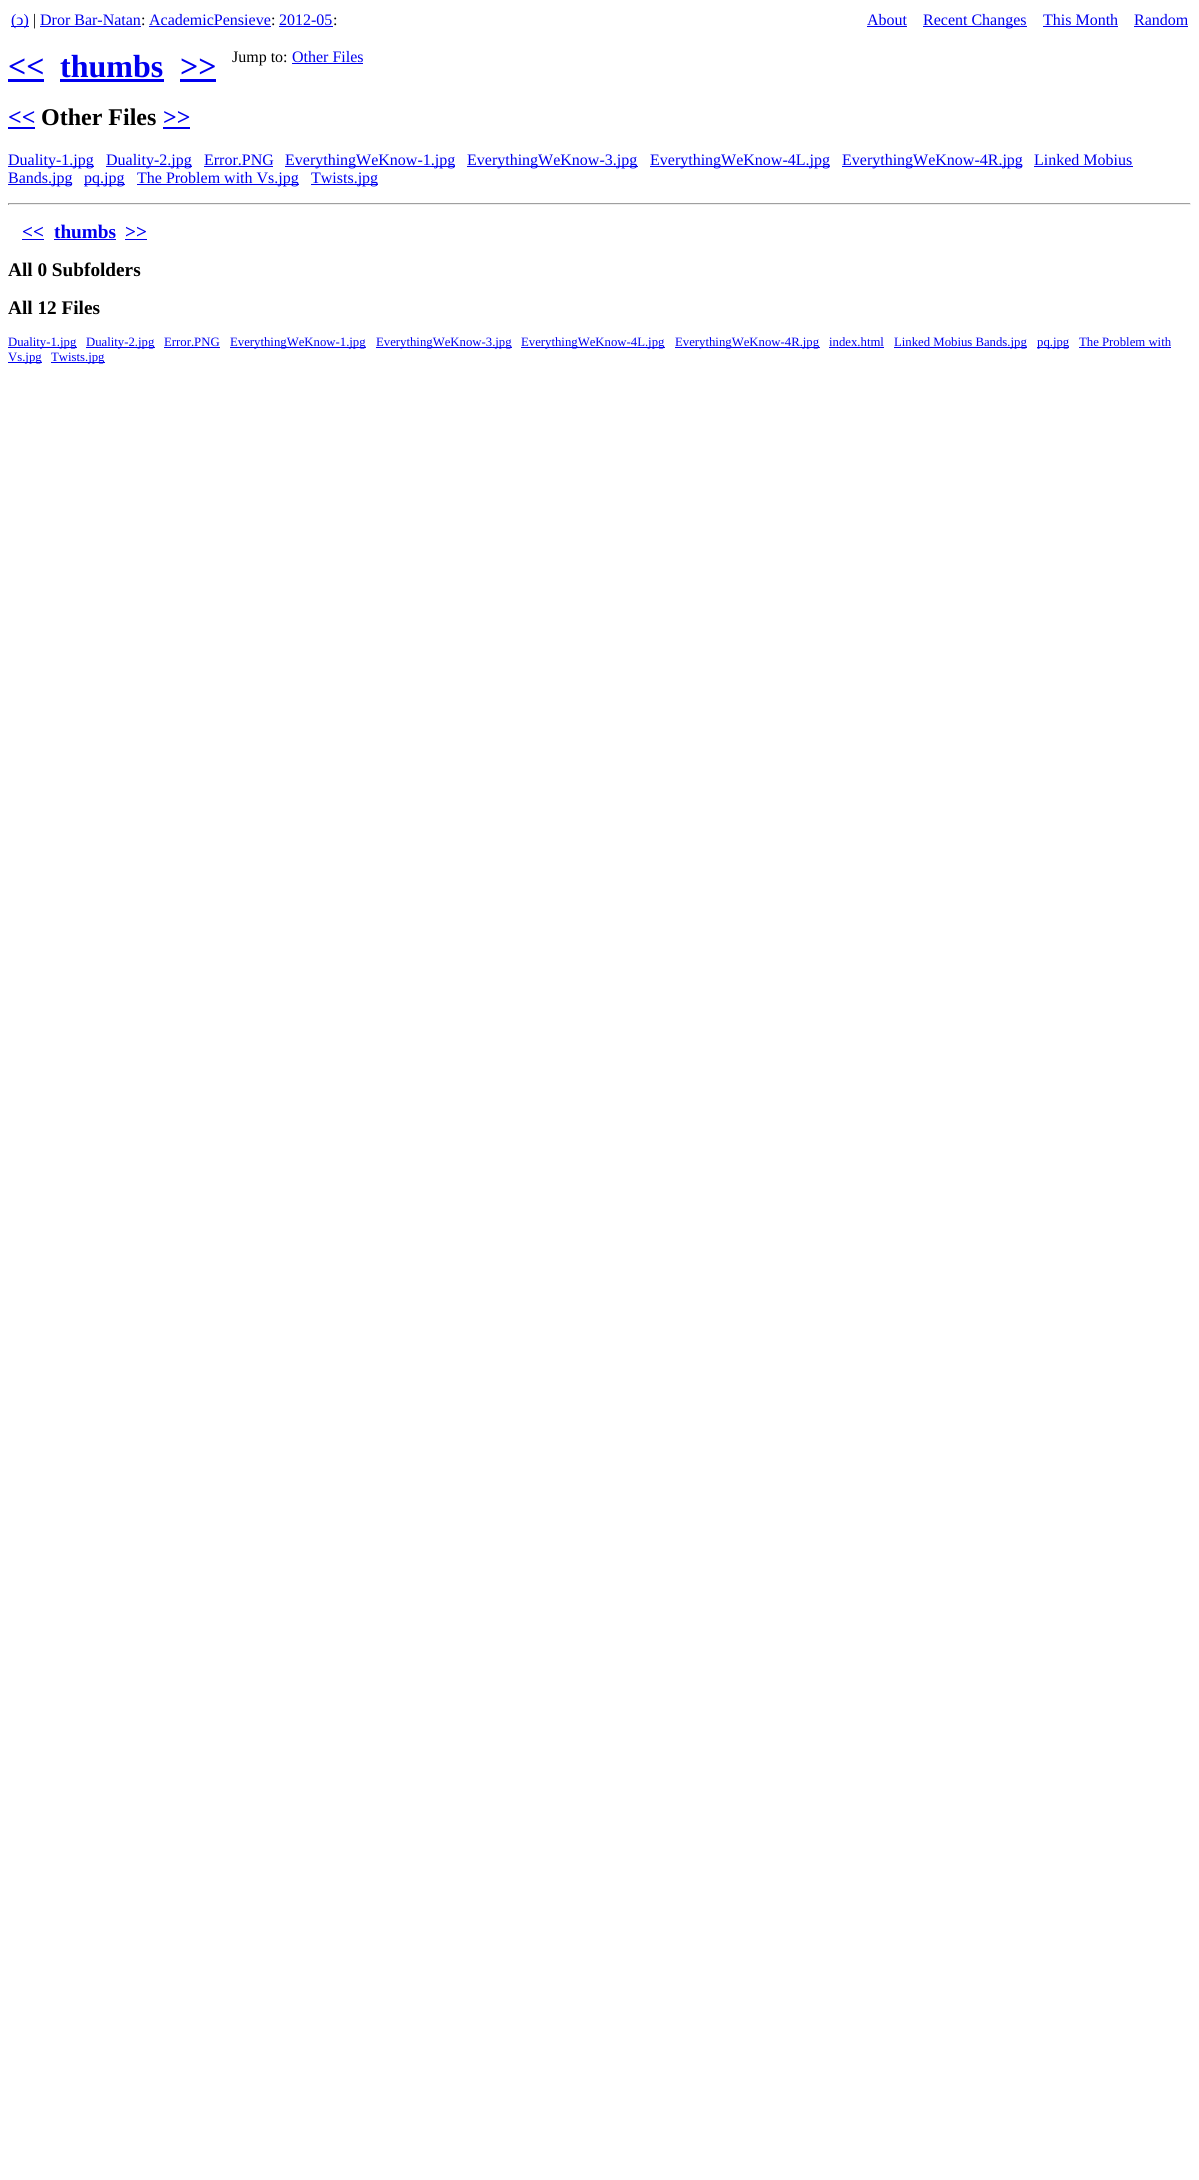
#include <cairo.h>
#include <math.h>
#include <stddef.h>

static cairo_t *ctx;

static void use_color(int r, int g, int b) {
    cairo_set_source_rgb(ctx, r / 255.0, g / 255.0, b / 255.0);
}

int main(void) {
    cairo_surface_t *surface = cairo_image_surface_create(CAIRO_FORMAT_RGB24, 1199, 2180);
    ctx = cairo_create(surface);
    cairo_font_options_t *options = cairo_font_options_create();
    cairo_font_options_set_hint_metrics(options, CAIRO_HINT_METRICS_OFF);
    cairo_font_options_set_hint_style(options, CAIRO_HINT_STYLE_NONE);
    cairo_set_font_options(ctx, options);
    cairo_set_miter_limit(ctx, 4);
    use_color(255, 255, 255);
    cairo_paint(ctx);
    use_color(0, 0, 238);
    cairo_rectangle(ctx, 11, 26, 18, 1);
    cairo_fill(ctx);
    cairo_select_font_face(ctx, "Liberation Serif", CAIRO_FONT_SLANT_NORMAL, CAIRO_FONT_WEIGHT_NORMAL);
    cairo_set_font_size(ctx, 16);
    cairo_move_to(ctx, 11, 25);
    cairo_show_text(ctx, "(ↄ)");
    use_color(0, 0, 0);
    cairo_move_to(ctx, 33, 25);
    cairo_show_text(ctx, "|");
    use_color(0, 0, 238);
    cairo_move_to(ctx, 40, 25);
    cairo_show_text(ctx, "Dror Bar-Natan");
    cairo_rectangle(ctx, 40, 26, 101, 1);
    cairo_fill(ctx);
    use_color(0, 0, 0);
    cairo_move_to(ctx, 141, 25);
    cairo_show_text(ctx, ":");
    use_color(0, 0, 238);
    cairo_move_to(ctx, 149, 25);
    cairo_show_text(ctx, "AcademicPensieve");
    cairo_rectangle(ctx, 149, 26, 122, 1);
    cairo_fill(ctx);
    use_color(0, 0, 0);
    cairo_move_to(ctx, 271, 25);
    cairo_show_text(ctx, ":");
    use_color(0, 0, 238);
    cairo_move_to(ctx, 279, 25);
    cairo_show_text(ctx, "2012-05");
    cairo_rectangle(ctx, 279, 26, 54, 1);
    cairo_fill(ctx);
    use_color(0, 0, 0);
    cairo_move_to(ctx, 333, 25);
    cairo_show_text(ctx, ":");
    use_color(0, 0, 238);
    cairo_move_to(ctx, 867, 25);
    cairo_show_text(ctx, "About");
    cairo_rectangle(ctx, 867, 26, 40, 1);
    cairo_fill(ctx);
    cairo_rectangle(ctx, 923, 26, 104, 1);
    cairo_fill(ctx);
    cairo_move_to(ctx, 923, 25);
    cairo_show_text(ctx, "Recent Changes");
    cairo_move_to(ctx, 1043, 25);
    cairo_show_text(ctx, "This Month");
    cairo_rectangle(ctx, 1043, 26, 75, 1);
    cairo_fill(ctx);
    cairo_move_to(ctx, 1134, 25);
    cairo_show_text(ctx, "Random");
    cairo_rectangle(ctx, 1134, 26, 54, 1);
    cairo_fill(ctx);
    cairo_select_font_face(ctx, "Liberation Serif", CAIRO_FONT_SLANT_NORMAL, CAIRO_FONT_WEIGHT_BOLD);
    cairo_set_font_size(ctx, 32);
    cairo_move_to(ctx, 8, 77);
    cairo_show_text(ctx, "<<");
    cairo_rectangle(ctx, 8, 79, 36, 3);
    cairo_fill(ctx);
    cairo_move_to(ctx, 60, 77);
    cairo_show_text(ctx, "thumbs");
    cairo_rectangle(ctx, 60, 79, 104, 3);
    cairo_fill(ctx);
    cairo_move_to(ctx, 180, 77);
    cairo_show_text(ctx, ">>");
    cairo_rectangle(ctx, 180, 79, 36, 3);
    cairo_fill(ctx);
    cairo_select_font_face(ctx, "Liberation Serif", CAIRO_FONT_SLANT_NORMAL, CAIRO_FONT_WEIGHT_NORMAL);
    cairo_set_font_size(ctx, 16);
    use_color(0, 0, 0);
    cairo_move_to(ctx, 232, 62);
    cairo_show_text(ctx, "Jump to:");
    use_color(0, 0, 238);
    cairo_move_to(ctx, 292, 62);
    cairo_show_text(ctx, "Other Files");
    cairo_rectangle(ctx, 292, 63, 71, 1);
    cairo_fill(ctx);
    cairo_select_font_face(ctx, "Liberation Serif", CAIRO_FONT_SLANT_NORMAL, CAIRO_FONT_WEIGHT_BOLD);
    cairo_set_font_size(ctx, 24);
    cairo_move_to(ctx, 8, 125);
    cairo_show_text(ctx, "<<");
    cairo_rectangle(ctx, 8, 127, 27, 2);
    cairo_fill(ctx);
    use_color(0, 0, 0);
    cairo_move_to(ctx, 41, 125);
    cairo_show_text(ctx, "Other Files");
    use_color(0, 0, 238);
    cairo_move_to(ctx, 163, 125);
    cairo_show_text(ctx, ">>");
    cairo_rectangle(ctx, 163, 127, 27, 2);
    cairo_fill(ctx);
    cairo_rectangle(ctx, 8, 166, 86, 1);
    cairo_fill(ctx);
    cairo_select_font_face(ctx, "Liberation Serif", CAIRO_FONT_SLANT_NORMAL, CAIRO_FONT_WEIGHT_NORMAL);
    cairo_set_font_size(ctx, 16);
    cairo_move_to(ctx, 8, 165);
    cairo_show_text(ctx, "Duality-1.jpg");
    cairo_rectangle(ctx, 106, 166, 86, 1);
    cairo_fill(ctx);
    cairo_move_to(ctx, 106, 165);
    cairo_show_text(ctx, "Duality-2.jpg");
    cairo_move_to(ctx, 204, 165);
    cairo_show_text(ctx, "Error.PNG");
    cairo_rectangle(ctx, 204, 166, 69, 1);
    cairo_fill(ctx);
    cairo_rectangle(ctx, 285, 166, 170, 1);
    cairo_fill(ctx);
    cairo_move_to(ctx, 285, 165);
    cairo_show_text(ctx, "EverythingWeKnow-1.jpg");
    cairo_rectangle(ctx, 467, 166, 171, 1);
    cairo_fill(ctx);
    cairo_move_to(ctx, 467, 165);
    cairo_show_text(ctx, "EverythingWeKnow-3.jpg");
    cairo_rectangle(ctx, 650, 166, 180, 1);
    cairo_fill(ctx);
    cairo_move_to(ctx, 650, 165);
    cairo_show_text(ctx, "EverythingWeKnow-4L.jpg");
    cairo_rectangle(ctx, 842, 166, 180, 1);
    cairo_fill(ctx);
    cairo_move_to(ctx, 842, 165);
    cairo_show_text(ctx, "EverythingWeKnow-4R.jpg");
    cairo_move_to(ctx, 1034, 165);
    cairo_show_text(ctx, "Linked Mobius");
    cairo_rectangle(ctx, 1034, 166, 99, 1);
    cairo_fill(ctx);
    cairo_rectangle(ctx, 8, 184, 64, 1);
    cairo_fill(ctx);
    cairo_move_to(ctx, 8, 183);
    cairo_show_text(ctx, "Bands.jpg");
    cairo_rectangle(ctx, 84, 184, 41, 1);
    cairo_fill(ctx);
    cairo_move_to(ctx, 84, 183);
    cairo_show_text(ctx, "pq.jpg");
    cairo_rectangle(ctx, 137, 184, 162, 1);
    cairo_fill(ctx);
    cairo_move_to(ctx, 137, 183);
    cairo_show_text(ctx, "The Problem with Vs.jpg");
    cairo_rectangle(ctx, 311, 184, 67, 1);
    cairo_fill(ctx);
    cairo_move_to(ctx, 311, 183);
    cairo_show_text(ctx, "Twists.jpg");
    use_color(159, 159, 159);
    cairo_rectangle(ctx, 8, 203, 1183, 1);
    cairo_fill(ctx);
    use_color(238, 238, 238);
    cairo_rectangle(ctx, 1190, 203, 1, 2);
    cairo_fill(ctx);
    cairo_rectangle(ctx, 8, 204, 1183, 1);
    cairo_fill(ctx);
    use_color(159, 159, 159);
    cairo_rectangle(ctx, 8, 203, 1, 2);
    cairo_fill(ctx);
    cairo_select_font_face(ctx, "Liberation Serif", CAIRO_FONT_SLANT_NORMAL, CAIRO_FONT_WEIGHT_BOLD);
    cairo_set_font_size(ctx, 19.25);
    use_color(0, 0, 238);
    cairo_move_to(ctx, 22, 238);
    cairo_show_text(ctx, "<<");
    cairo_rectangle(ctx, 22, 239, 22, 1);
    cairo_fill(ctx);
    cairo_move_to(ctx, 54, 238);
    cairo_show_text(ctx, "thumbs");
    cairo_rectangle(ctx, 54, 239, 62, 1);
    cairo_fill(ctx);
    cairo_move_to(ctx, 125, 238);
    cairo_show_text(ctx, ">>");
    cairo_rectangle(ctx, 125, 239, 22, 1);
    cairo_fill(ctx);
    use_color(0, 0, 0);
    cairo_move_to(ctx, 8, 276);
    cairo_show_text(ctx, "All 0 Subfolders");
    cairo_move_to(ctx, 8, 314);
    cairo_show_text(ctx, "All 12 Files");
    use_color(0, 0, 238);
    cairo_rectangle(ctx, 8, 347, 69, 1);
    cairo_fill(ctx);
    cairo_select_font_face(ctx, "Liberation Serif", CAIRO_FONT_SLANT_NORMAL, CAIRO_FONT_WEIGHT_NORMAL);
    cairo_set_font_size(ctx, 12.75);
    cairo_move_to(ctx, 8, 346);
    cairo_show_text(ctx, "Duality-1.jpg");
    cairo_rectangle(ctx, 86, 347, 69, 1);
    cairo_fill(ctx);
    cairo_move_to(ctx, 86, 346);
    cairo_show_text(ctx, "Duality-2.jpg");
    cairo_move_to(ctx, 164, 346);
    cairo_show_text(ctx, "Error.PNG");
    cairo_rectangle(ctx, 164, 347, 56, 1);
    cairo_fill(ctx);
    cairo_rectangle(ctx, 230, 347, 136, 1);
    cairo_fill(ctx);
    cairo_move_to(ctx, 230, 346);
    cairo_show_text(ctx, "EverythingWeKnow-1.jpg");
    cairo_rectangle(ctx, 376, 347, 136, 1);
    cairo_fill(ctx);
    cairo_move_to(ctx, 376, 346);
    cairo_show_text(ctx, "EverythingWeKnow-3.jpg");
    cairo_rectangle(ctx, 521, 347, 144, 1);
    cairo_fill(ctx);
    cairo_move_to(ctx, 521, 346);
    cairo_show_text(ctx, "EverythingWeKnow-4L.jpg");
    cairo_rectangle(ctx, 675, 347, 145, 1);
    cairo_fill(ctx);
    cairo_move_to(ctx, 675, 346);
    cairo_show_text(ctx, "EverythingWeKnow-4R.jpg");
    cairo_move_to(ctx, 829, 346);
    cairo_show_text(ctx, "index.html");
    cairo_rectangle(ctx, 829, 347, 55, 1);
    cairo_fill(ctx);
    cairo_rectangle(ctx, 894, 347, 133, 1);
    cairo_fill(ctx);
    cairo_move_to(ctx, 894, 346);
    cairo_show_text(ctx, "Linked Mobius Bands.jpg");
    cairo_rectangle(ctx, 1037, 347, 32, 1);
    cairo_fill(ctx);
    cairo_move_to(ctx, 1037, 346);
    cairo_show_text(ctx, "pq.jpg");
    cairo_move_to(ctx, 1079, 346);
    cairo_show_text(ctx, "The Problem with");
    cairo_rectangle(ctx, 1079, 347, 92, 1);
    cairo_fill(ctx);
    cairo_rectangle(ctx, 8, 362, 34, 1);
    cairo_fill(ctx);
    cairo_move_to(ctx, 8, 361);
    cairo_show_text(ctx, "Vs.jpg");
    cairo_rectangle(ctx, 51, 362, 54, 1);
    cairo_fill(ctx);
    cairo_move_to(ctx, 51, 361);
    cairo_show_text(ctx, "Twists.jpg");
    cairo_surface_write_to_png(surface, "result.png");
    cairo_font_options_destroy(options);
    cairo_destroy(ctx);
    cairo_surface_destroy(surface);
    return 0;
}
